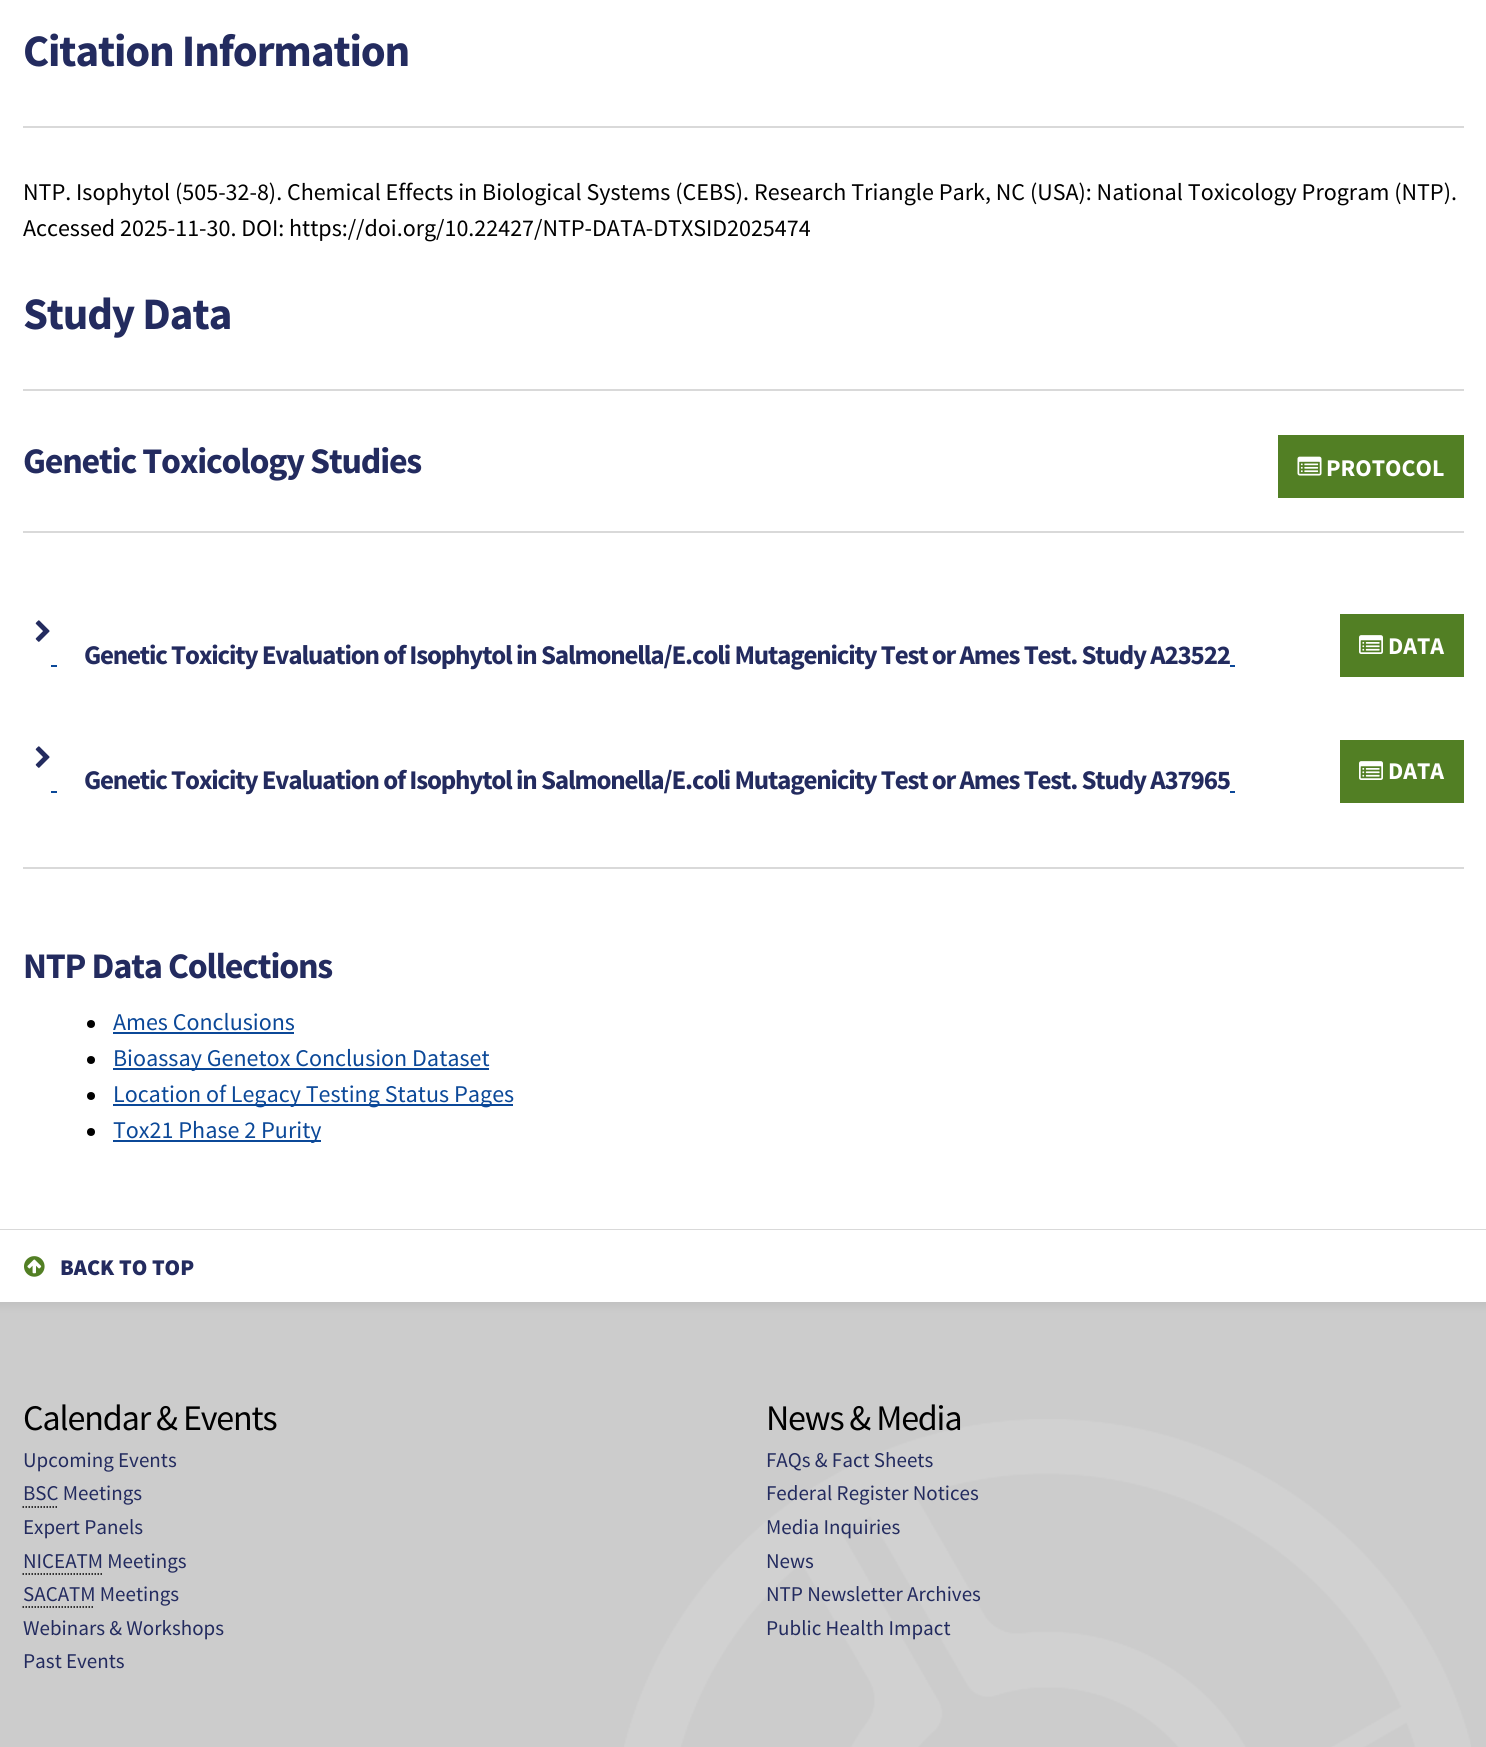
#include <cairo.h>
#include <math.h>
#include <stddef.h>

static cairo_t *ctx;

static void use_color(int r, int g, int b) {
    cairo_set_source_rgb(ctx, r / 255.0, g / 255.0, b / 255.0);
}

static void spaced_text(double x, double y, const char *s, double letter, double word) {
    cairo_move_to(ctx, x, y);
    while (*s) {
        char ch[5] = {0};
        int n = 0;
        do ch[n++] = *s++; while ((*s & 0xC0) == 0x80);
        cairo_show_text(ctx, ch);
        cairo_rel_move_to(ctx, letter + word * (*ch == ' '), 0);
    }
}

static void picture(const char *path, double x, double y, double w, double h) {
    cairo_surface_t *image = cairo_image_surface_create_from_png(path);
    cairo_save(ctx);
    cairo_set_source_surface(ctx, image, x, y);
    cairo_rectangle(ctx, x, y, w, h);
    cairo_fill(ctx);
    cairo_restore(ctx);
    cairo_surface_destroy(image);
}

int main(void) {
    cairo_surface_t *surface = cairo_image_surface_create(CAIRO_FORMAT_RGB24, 1486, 1747);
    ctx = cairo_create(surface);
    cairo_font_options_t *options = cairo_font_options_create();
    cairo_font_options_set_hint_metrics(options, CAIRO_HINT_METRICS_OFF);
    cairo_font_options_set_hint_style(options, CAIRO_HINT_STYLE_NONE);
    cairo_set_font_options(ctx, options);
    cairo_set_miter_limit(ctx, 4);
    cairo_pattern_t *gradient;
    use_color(255, 255, 255);
    cairo_paint(ctx);
    cairo_select_font_face(ctx, "Source Sans Pro", CAIRO_FONT_SLANT_NORMAL, CAIRO_FONT_WEIGHT_BOLD);
    cairo_set_font_size(ctx, 45);
    use_color(35, 43, 95);
    spaced_text(23, 66, "Citation Information", -1.2, 0);
    use_color(217, 217, 217);
    cairo_rectangle(ctx, 23, 126, 1441, 2);
    cairo_fill(ctx);
    cairo_select_font_face(ctx, "Source Sans Pro", CAIRO_FONT_SLANT_NORMAL, CAIRO_FONT_WEIGHT_NORMAL);
    cairo_set_font_size(ctx, 24);
    use_color(0, 0, 0);
    cairo_move_to(ctx, 23, 200);
    cairo_show_text(ctx, "NTP. Isophytol (505-32-8). Chemical Effects in Biological Systems (CEBS). Research Triangle Park, NC (USA): National Toxicology Program (NTP).");
    cairo_move_to(ctx, 23, 236);
    cairo_show_text(ctx, "Accessed 2025-11-30. DOI: https://doi.org/10.22427/NTP-DATA-DTXSID2025474");
    cairo_select_font_face(ctx, "Source Sans Pro", CAIRO_FONT_SLANT_NORMAL, CAIRO_FONT_WEIGHT_BOLD);
    cairo_set_font_size(ctx, 45);
    use_color(35, 43, 95);
    spaced_text(23, 329, "Study Data", -1.2, 0);
    use_color(217, 217, 217);
    cairo_rectangle(ctx, 23, 389, 1441, 2);
    cairo_fill(ctx);
    cairo_set_font_size(ctx, 36);
    use_color(35, 43, 95);
    spaced_text(23, 473, "Genetic Toxicology Studies", -1.2, 0);
    use_color(82, 127, 36);
    cairo_rectangle(ctx, 1278, 435, 186, 63);
    cairo_fill(ctx);
    picture("img1.png", 1297, 456, 25, 20);
    cairo_set_font_size(ctx, 24);
    use_color(255, 255, 255);
    cairo_move_to(ctx, 1326, 476);
    cairo_show_text(ctx, "PROTOCOL");
    use_color(217, 217, 217);
    cairo_rectangle(ctx, 23, 531, 1441, 2);
    cairo_fill(ctx);
    picture("img2.png", 35, 620, 15, 22);
    use_color(11, 72, 152);
    cairo_rectangle(ctx, 51, 665, 6, 2);
    cairo_fill(ctx);
    cairo_set_font_size(ctx, 27);
    use_color(35, 43, 95);
    spaced_text(84, 664, "Genetic Toxicity Evaluation of Isophytol in Salmonella/E.coli Mutagenicity Test or Ames Test. Study A23522", -1.2, 0);
    use_color(11, 72, 152);
    cairo_rectangle(ctx, 1230, 665, 5, 2);
    cairo_fill(ctx);
    use_color(82, 127, 36);
    cairo_rectangle(ctx, 1340, 614, 124, 63);
    cairo_fill(ctx);
    picture("img3.png", 1359, 635, 24, 19);
    cairo_set_font_size(ctx, 24);
    use_color(255, 255, 255);
    cairo_move_to(ctx, 1388, 654);
    cairo_show_text(ctx, "DATA");
    picture("img2.png", 35, 746, 15, 22);
    use_color(11, 72, 152);
    cairo_rectangle(ctx, 51, 791, 6, 2);
    cairo_fill(ctx);
    cairo_set_font_size(ctx, 27);
    use_color(35, 43, 95);
    spaced_text(84, 789, "Genetic Toxicity Evaluation of Isophytol in Salmonella/E.coli Mutagenicity Test or Ames Test. Study A37965", -1.2, 0);
    use_color(11, 72, 152);
    cairo_rectangle(ctx, 1230, 791, 5, 2);
    cairo_fill(ctx);
    use_color(82, 127, 36);
    cairo_rectangle(ctx, 1340, 740, 124, 63);
    cairo_fill(ctx);
    picture("img3.png", 1359, 761, 24, 19);
    cairo_set_font_size(ctx, 24);
    use_color(255, 255, 255);
    cairo_move_to(ctx, 1388, 779);
    cairo_show_text(ctx, "DATA");
    use_color(217, 217, 217);
    cairo_rectangle(ctx, 23, 867, 1441, 2);
    cairo_fill(ctx);
    cairo_set_font_size(ctx, 36);
    use_color(35, 43, 95);
    spaced_text(23, 978, "NTP Data Collections", -1.2, 0);
    use_color(0, 0, 0);
    cairo_new_path(ctx);
    cairo_arc(ctx, 91, 1024, 4, 0, 2 * M_PI);
    cairo_fill(ctx);
    cairo_select_font_face(ctx, "Source Sans Pro", CAIRO_FONT_SLANT_NORMAL, CAIRO_FONT_WEIGHT_NORMAL);
    cairo_set_font_size(ctx, 24);
    use_color(11, 72, 152);
    cairo_move_to(ctx, 113, 1030);
    cairo_show_text(ctx, "Ames Conclusions");
    cairo_rectangle(ctx, 113, 1032, 181, 2);
    cairo_fill(ctx);
    use_color(0, 0, 0);
    cairo_arc(ctx, 91, 1060, 4, 0, 2 * M_PI);
    cairo_fill(ctx);
    use_color(11, 72, 152);
    cairo_rectangle(ctx, 113, 1068, 376, 2);
    cairo_fill(ctx);
    cairo_move_to(ctx, 113, 1066);
    cairo_show_text(ctx, "Bioassay Genetox Conclusion Dataset");
    use_color(0, 0, 0);
    cairo_new_path(ctx);
    cairo_arc(ctx, 91, 1096, 4, 0, 2 * M_PI);
    cairo_fill(ctx);
    use_color(11, 72, 152);
    cairo_rectangle(ctx, 113, 1104, 400, 2);
    cairo_fill(ctx);
    cairo_move_to(ctx, 113, 1102);
    cairo_show_text(ctx, "Location of Legacy Testing Status Pages");
    use_color(0, 0, 0);
    cairo_new_path(ctx);
    cairo_arc(ctx, 91, 1132, 4, 0, 2 * M_PI);
    cairo_fill(ctx);
    use_color(11, 72, 152);
    cairo_rectangle(ctx, 113, 1140, 208, 2);
    cairo_fill(ctx);
    cairo_move_to(ctx, 113, 1138);
    cairo_show_text(ctx, "Tox21 Phase 2 Purity");
    use_color(217, 217, 217);
    cairo_rectangle(ctx, 0, 1229, 1486, 1);
    cairo_fill(ctx);
    picture("img4.png", 24, 1256, 21, 21);
    cairo_select_font_face(ctx, "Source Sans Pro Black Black", CAIRO_FONT_SLANT_NORMAL, CAIRO_FONT_WEIGHT_NORMAL);
    cairo_set_font_size(ctx, 22.5);
    use_color(35, 43, 95);
    cairo_move_to(ctx, 60, 1275);
    cairo_show_text(ctx, "BACK TO TOP");
    gradient = cairo_pattern_create_linear(743, 1302, 743, 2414);
    cairo_pattern_add_color_stop_rgba(gradient, 0, 0.761, 0.761, 0.761, 1);
    cairo_pattern_add_color_stop_rgba(gradient, 0.01, 0.8, 0.8, 0.8, 1);
    cairo_pattern_add_color_stop_rgba(gradient, 0.02, 0.8, 0.8, 0.8, 1);
    cairo_set_source(ctx, gradient);
    cairo_pattern_destroy(gradient);
    cairo_rectangle(ctx, 0, 1302, 1486, 445);
    cairo_fill(ctx);
    picture("img5.png", 624, 1419, 847, 328);
    cairo_select_font_face(ctx, "Source Sans Pro", CAIRO_FONT_SLANT_NORMAL, CAIRO_FONT_WEIGHT_NORMAL);
    cairo_set_font_size(ctx, 36);
    use_color(0, 0, 0);
    spaced_text(23, 1430, "Calendar & Events", -1.2, 0);
    cairo_set_font_size(ctx, 21);
    use_color(35, 43, 95);
    cairo_move_to(ctx, 23, 1467);
    cairo_show_text(ctx, "Upcoming Events");
    cairo_move_to(ctx, 23, 1500);
    cairo_show_text(ctx, "BSC Meetings");
    cairo_new_path(ctx);
    cairo_move_to(ctx, 22.5, 1507);
    cairo_line_to(ctx, 58.5, 1507);
    use_color(0, 0, 0);
    cairo_set_line_width(ctx, 1.5);
    cairo_set_dash(ctx, (double[]){1.5, 1.5}, 2, 0);
    cairo_stroke(ctx);
    use_color(35, 43, 95);
    cairo_move_to(ctx, 23, 1534);
    cairo_show_text(ctx, "Expert Panels");
    cairo_move_to(ctx, 23, 1568);
    cairo_show_text(ctx, "NICEATM Meetings");
    cairo_new_path(ctx);
    cairo_move_to(ctx, 22.5, 1574);
    cairo_line_to(ctx, 102, 1574);
    use_color(0, 0, 0);
    cairo_stroke(ctx);
    use_color(35, 43, 95);
    cairo_move_to(ctx, 23, 1601);
    cairo_show_text(ctx, "SACATM Meetings");
    cairo_new_path(ctx);
    cairo_move_to(ctx, 22.5, 1607);
    cairo_line_to(ctx, 94.5, 1607);
    use_color(0, 0, 0);
    cairo_stroke(ctx);
    use_color(35, 43, 95);
    cairo_move_to(ctx, 23, 1635);
    cairo_show_text(ctx, "Webinars & Workshops");
    cairo_move_to(ctx, 23, 1668);
    cairo_show_text(ctx, "Past Events");
    cairo_set_font_size(ctx, 36);
    use_color(0, 0, 0);
    spaced_text(766, 1430, "News & Media", -1.2, 0);
    cairo_set_font_size(ctx, 21);
    use_color(35, 43, 95);
    cairo_move_to(ctx, 766, 1467);
    cairo_show_text(ctx, "FAQs & Fact Sheets");
    cairo_move_to(ctx, 766, 1500);
    cairo_show_text(ctx, "Federal Register Notices");
    cairo_move_to(ctx, 766, 1534);
    cairo_show_text(ctx, "Media Inquiries");
    cairo_move_to(ctx, 766, 1568);
    cairo_show_text(ctx, "News");
    cairo_move_to(ctx, 766, 1601);
    cairo_show_text(ctx, "NTP Newsletter Archives");
    cairo_move_to(ctx, 766, 1635);
    cairo_show_text(ctx, "Public Health Impact");
    cairo_surface_write_to_png(surface, "result.png");
    cairo_font_options_destroy(options);
    cairo_destroy(ctx);
    cairo_surface_destroy(surface);
    return 0;
}
